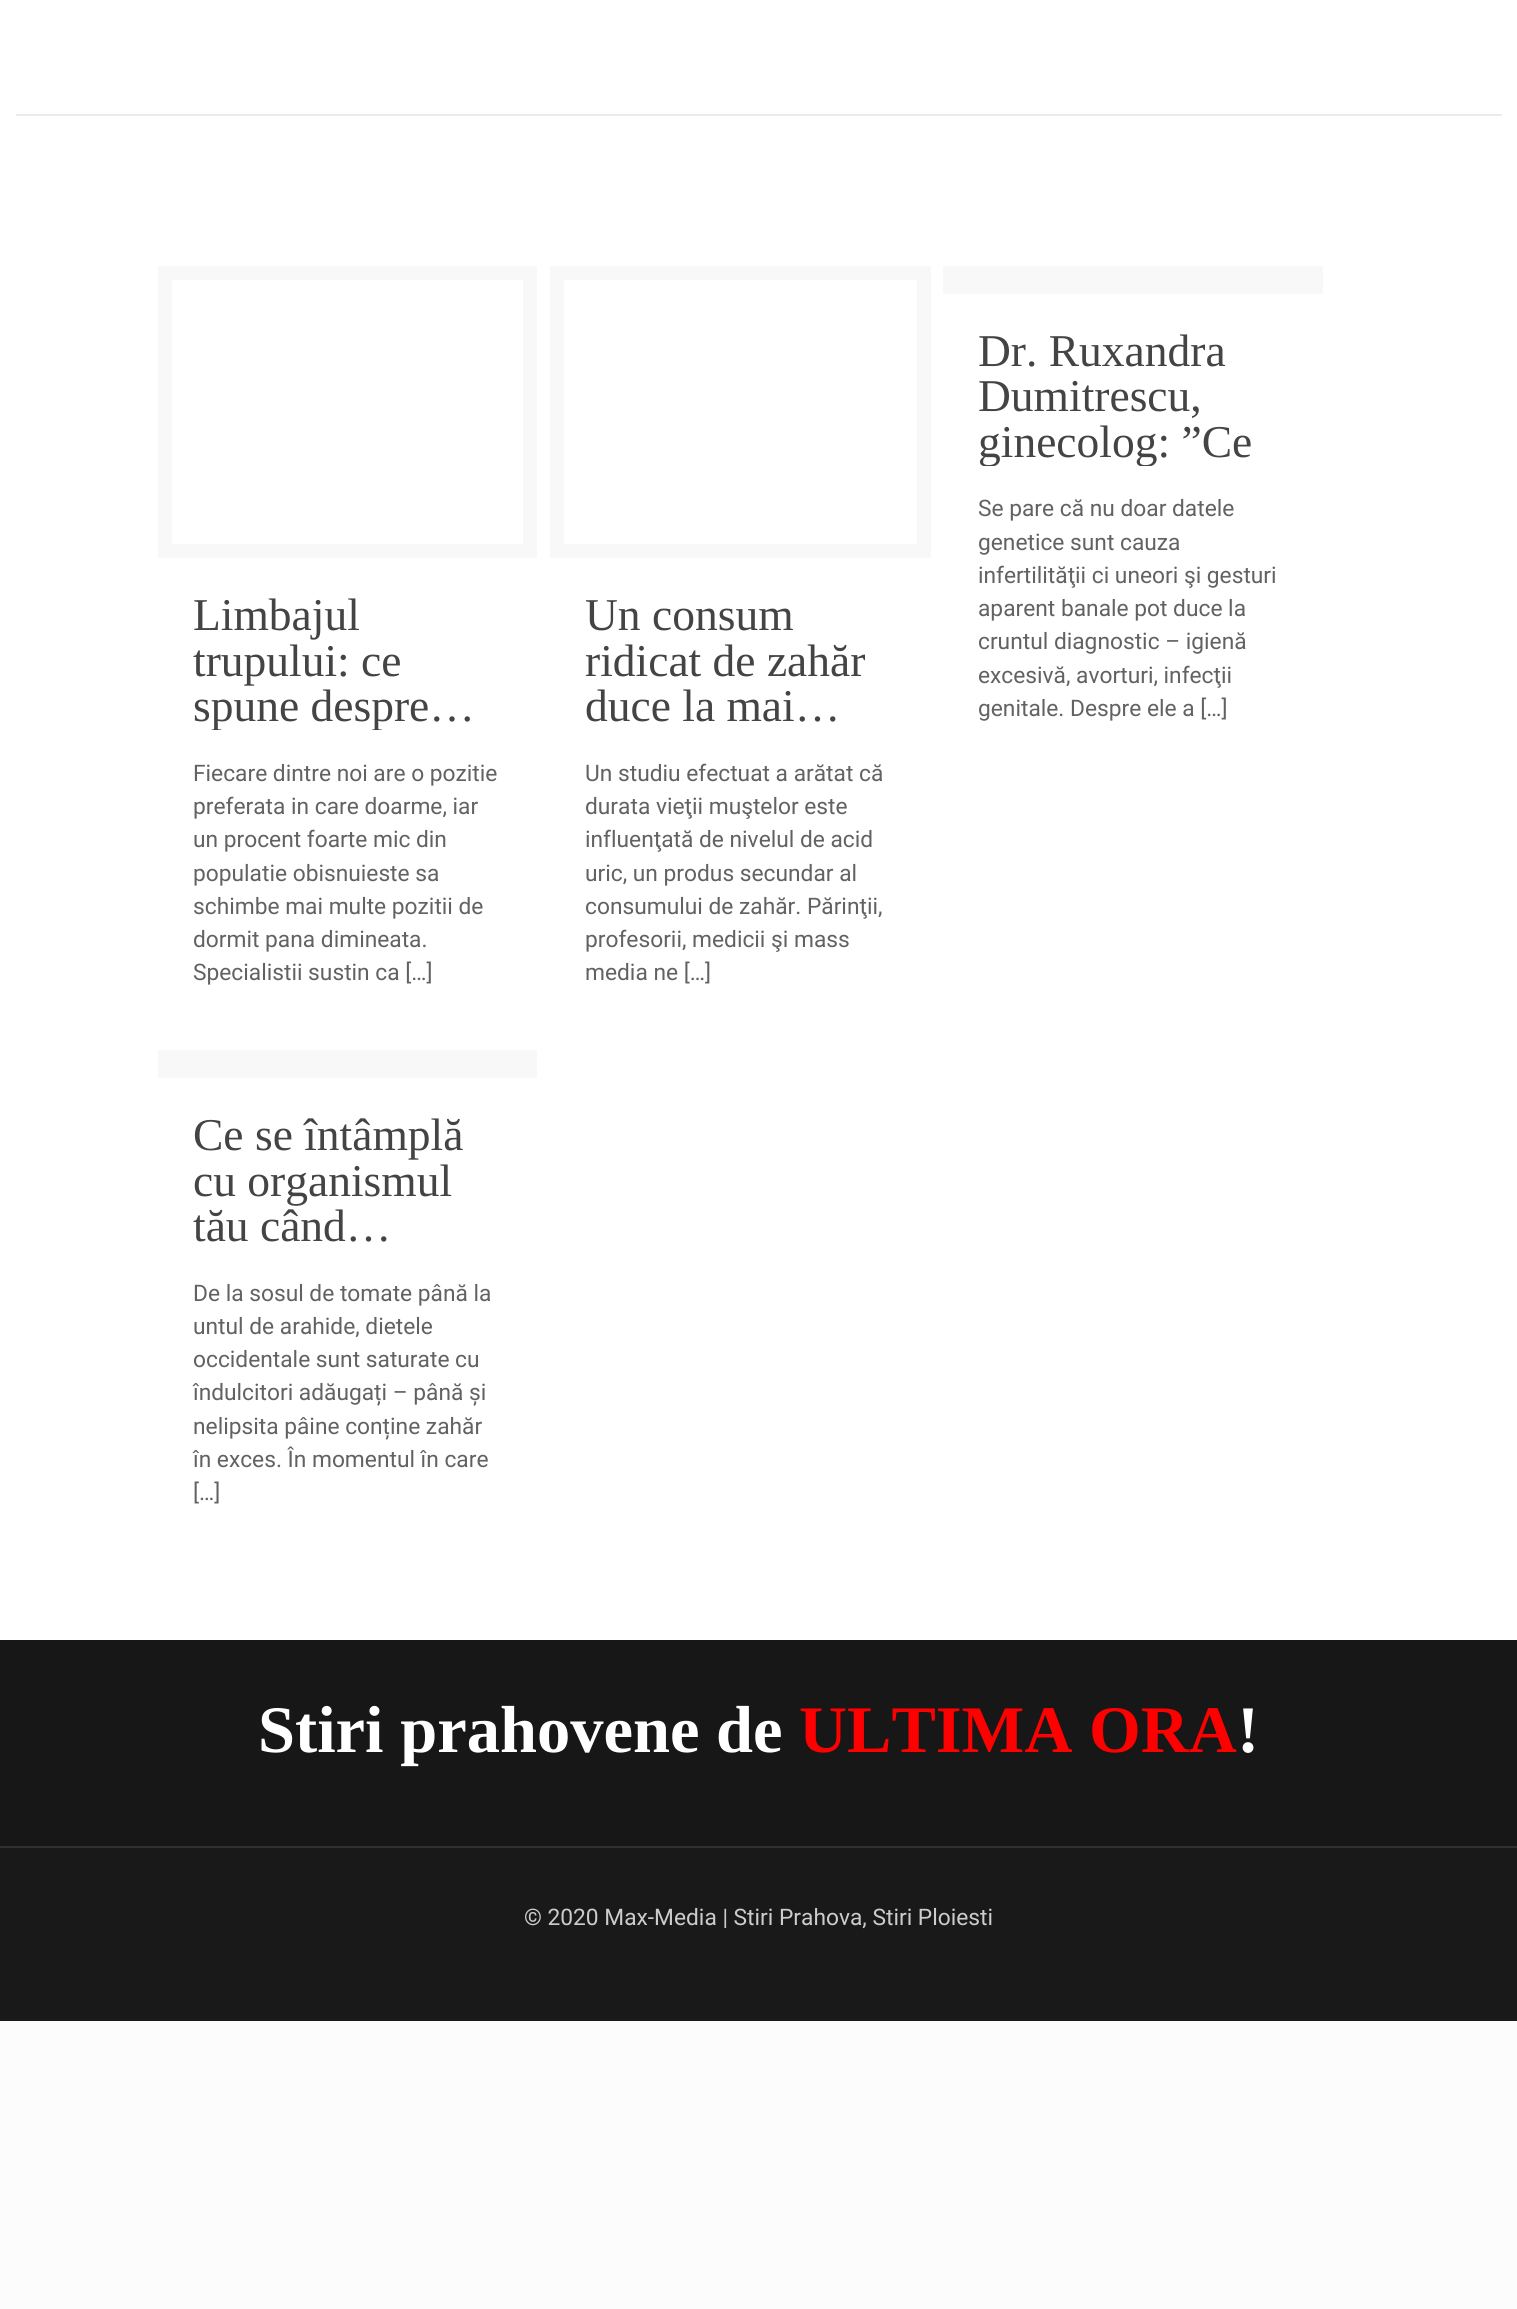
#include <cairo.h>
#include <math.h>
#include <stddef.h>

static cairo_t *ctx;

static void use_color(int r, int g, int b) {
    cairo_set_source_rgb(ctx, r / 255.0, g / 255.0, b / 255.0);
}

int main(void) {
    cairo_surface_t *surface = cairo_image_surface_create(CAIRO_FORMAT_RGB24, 1517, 2309);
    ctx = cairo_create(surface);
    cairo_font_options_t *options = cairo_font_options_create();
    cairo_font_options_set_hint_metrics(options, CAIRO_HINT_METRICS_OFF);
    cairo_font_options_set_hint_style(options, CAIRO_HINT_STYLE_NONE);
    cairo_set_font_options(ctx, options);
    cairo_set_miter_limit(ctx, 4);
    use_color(252, 252, 252);
    cairo_paint(ctx);
    use_color(255, 255, 255);
    cairo_rectangle(ctx, 0, 0, 1517, 1640);
    cairo_fill(ctx);
    use_color(235, 235, 235);
    cairo_rectangle(ctx, 16, 114, 1486, 2);
    cairo_fill(ctx);
    use_color(248, 248, 248);
    cairo_rectangle(ctx, 943, 266, 380, 28);
    cairo_fill(ctx);
    cairo_select_font_face(ctx, "Liberation Serif", CAIRO_FONT_SLANT_NORMAL, CAIRO_FONT_WEIGHT_NORMAL);
    cairo_set_font_size(ctx, 45.5);
    use_color(68, 68, 68);
    cairo_move_to(ctx, 978, 366);
    cairo_show_text(ctx, "Dr. Ruxandra");
    cairo_move_to(ctx, 978, 411);
    cairo_show_text(ctx, "Dumitrescu,");
    cairo_save(ctx);
    cairo_rectangle(ctx, 978, 329, 310, 137);
    cairo_clip(ctx);
    cairo_move_to(ctx, 978, 457);
    cairo_show_text(ctx, "ginecolog: ”Ce");
    cairo_restore(ctx);
    cairo_select_font_face(ctx, "Roboto", CAIRO_FONT_SLANT_NORMAL, CAIRO_FONT_WEIGHT_NORMAL);
    cairo_set_font_size(ctx, 22.75);
    use_color(98, 98, 98);
    cairo_move_to(ctx, 978, 516);
    cairo_show_text(ctx, "Se pare că nu doar datele");
    cairo_move_to(ctx, 978, 550);
    cairo_show_text(ctx, "genetice sunt cauza");
    cairo_move_to(ctx, 978, 583);
    cairo_show_text(ctx, "infertilităţii ci uneori şi gesturi");
    cairo_move_to(ctx, 978, 616);
    cairo_show_text(ctx, "aparent banale pot duce la");
    cairo_move_to(ctx, 978, 649);
    cairo_show_text(ctx, "cruntul diagnostic – igienă");
    cairo_move_to(ctx, 978, 683);
    cairo_show_text(ctx, "excesivă, avorturi, infecţii");
    cairo_move_to(ctx, 978, 716);
    cairo_show_text(ctx, "genitale. Despre ele a […]");
    cairo_rectangle(ctx, 165, 273, 365, 278);
    use_color(248, 248, 248);
    cairo_set_line_width(ctx, 14);
    cairo_stroke(ctx);
    cairo_select_font_face(ctx, "Liberation Serif", CAIRO_FONT_SLANT_NORMAL, CAIRO_FONT_WEIGHT_NORMAL);
    cairo_set_font_size(ctx, 45.5);
    use_color(68, 68, 68);
    cairo_move_to(ctx, 193, 630);
    cairo_show_text(ctx, "Limbajul");
    cairo_move_to(ctx, 193, 676);
    cairo_show_text(ctx, "trupului: ce");
    cairo_save(ctx);
    cairo_rectangle(ctx, 193, 593, 309, 137);
    cairo_clip(ctx);
    cairo_move_to(ctx, 193, 721);
    cairo_show_text(ctx, "spune despre…");
    cairo_restore(ctx);
    cairo_select_font_face(ctx, "Roboto", CAIRO_FONT_SLANT_NORMAL, CAIRO_FONT_WEIGHT_NORMAL);
    cairo_set_font_size(ctx, 22.75);
    use_color(98, 98, 98);
    cairo_move_to(ctx, 193, 781);
    cairo_show_text(ctx, "Fiecare dintre noi are o pozitie");
    cairo_move_to(ctx, 193, 814);
    cairo_show_text(ctx, "preferata in care doarme, iar");
    cairo_move_to(ctx, 193, 847);
    cairo_show_text(ctx, "un procent foarte mic din");
    cairo_move_to(ctx, 193, 881);
    cairo_show_text(ctx, "populatie obisnuieste sa");
    cairo_move_to(ctx, 193, 914);
    cairo_show_text(ctx, "schimbe mai multe pozitii de");
    cairo_move_to(ctx, 193, 947);
    cairo_show_text(ctx, "dormit pana dimineata.");
    cairo_move_to(ctx, 193, 980);
    cairo_show_text(ctx, "Specialistii sustin ca […]");
    cairo_rectangle(ctx, 557, 273, 367, 278);
    use_color(248, 248, 248);
    cairo_stroke(ctx);
    cairo_select_font_face(ctx, "Liberation Serif", CAIRO_FONT_SLANT_NORMAL, CAIRO_FONT_WEIGHT_NORMAL);
    cairo_set_font_size(ctx, 45.5);
    use_color(68, 68, 68);
    cairo_move_to(ctx, 585, 630);
    cairo_show_text(ctx, "Un consum");
    cairo_move_to(ctx, 585, 676);
    cairo_show_text(ctx, "ridicat de zahăr");
    cairo_move_to(ctx, 585, 721);
    cairo_show_text(ctx, "duce la mai…");
    cairo_select_font_face(ctx, "Roboto", CAIRO_FONT_SLANT_NORMAL, CAIRO_FONT_WEIGHT_NORMAL);
    cairo_set_font_size(ctx, 22.75);
    use_color(98, 98, 98);
    cairo_move_to(ctx, 585, 781);
    cairo_show_text(ctx, "Un studiu efectuat a arătat că");
    cairo_move_to(ctx, 585, 814);
    cairo_show_text(ctx, "durata vieţii muştelor este");
    cairo_move_to(ctx, 585, 847);
    cairo_show_text(ctx, "influenţată de nivelul de acid");
    cairo_move_to(ctx, 585, 881);
    cairo_show_text(ctx, "uric, un produs secundar al");
    cairo_move_to(ctx, 585, 914);
    cairo_show_text(ctx, "consumului de zahăr. Părinţii,");
    cairo_move_to(ctx, 585, 947);
    cairo_show_text(ctx, "profesorii, medicii şi mass");
    cairo_move_to(ctx, 585, 980);
    cairo_show_text(ctx, "media ne […]");
    use_color(248, 248, 248);
    cairo_rectangle(ctx, 158, 1050, 379, 28);
    cairo_fill(ctx);
    cairo_select_font_face(ctx, "Liberation Serif", CAIRO_FONT_SLANT_NORMAL, CAIRO_FONT_WEIGHT_NORMAL);
    cairo_set_font_size(ctx, 45.5);
    use_color(68, 68, 68);
    cairo_move_to(ctx, 193, 1150);
    cairo_show_text(ctx, "Ce se întâmplă");
    cairo_move_to(ctx, 193, 1196);
    cairo_show_text(ctx, "cu organismul");
    cairo_move_to(ctx, 193, 1241);
    cairo_show_text(ctx, "tău când…");
    cairo_select_font_face(ctx, "Roboto", CAIRO_FONT_SLANT_NORMAL, CAIRO_FONT_WEIGHT_NORMAL);
    cairo_set_font_size(ctx, 22.75);
    use_color(98, 98, 98);
    cairo_move_to(ctx, 193, 1301);
    cairo_show_text(ctx, "De la sosul de tomate până la");
    cairo_move_to(ctx, 193, 1334);
    cairo_show_text(ctx, "untul de arahide, dietele");
    cairo_move_to(ctx, 193, 1367);
    cairo_show_text(ctx, "occidentale sunt saturate cu");
    cairo_move_to(ctx, 193, 1400);
    cairo_show_text(ctx, "îndulcitori adăugați – până și");
    cairo_move_to(ctx, 193, 1434);
    cairo_show_text(ctx, "nelipsita pâine conține zahăr");
    cairo_move_to(ctx, 193, 1467);
    cairo_show_text(ctx, "în exces. În momentul în care");
    cairo_move_to(ctx, 193, 1500);
    cairo_show_text(ctx, "[…]");
    use_color(25, 25, 25);
    cairo_rectangle(ctx, 0, 1848, 1517, 173);
    cairo_fill(ctx);
    use_color(23, 23, 23);
    cairo_rectangle(ctx, 0, 1640, 1517, 206);
    cairo_fill(ctx);
    cairo_select_font_face(ctx, "Liberation Serif", CAIRO_FONT_SLANT_NORMAL, CAIRO_FONT_WEIGHT_BOLD);
    cairo_set_font_size(ctx, 66.5);
    use_color(255, 255, 255);
    cairo_move_to(ctx, 258, 1752);
    cairo_show_text(ctx, "Stiri prahovene de");
    use_color(255, 0, 0);
    cairo_move_to(ctx, 799, 1752);
    cairo_show_text(ctx, "ULTIMA ORA");
    use_color(255, 255, 255);
    cairo_move_to(ctx, 1237, 1752);
    cairo_show_text(ctx, "!");
    use_color(48, 48, 48);
    cairo_rectangle(ctx, 0, 1846, 1517, 2);
    cairo_fill(ctx);
    cairo_select_font_face(ctx, "Roboto", CAIRO_FONT_SLANT_NORMAL, CAIRO_FONT_WEIGHT_NORMAL);
    cairo_set_font_size(ctx, 22.75);
    use_color(204, 204, 204);
    cairo_move_to(ctx, 524, 1925);
    cairo_show_text(ctx, "© 2020 Max-Media | Stiri Prahova, Stiri Ploiesti");
    cairo_surface_write_to_png(surface, "result.png");
    cairo_font_options_destroy(options);
    cairo_destroy(ctx);
    cairo_surface_destroy(surface);
    return 0;
}
